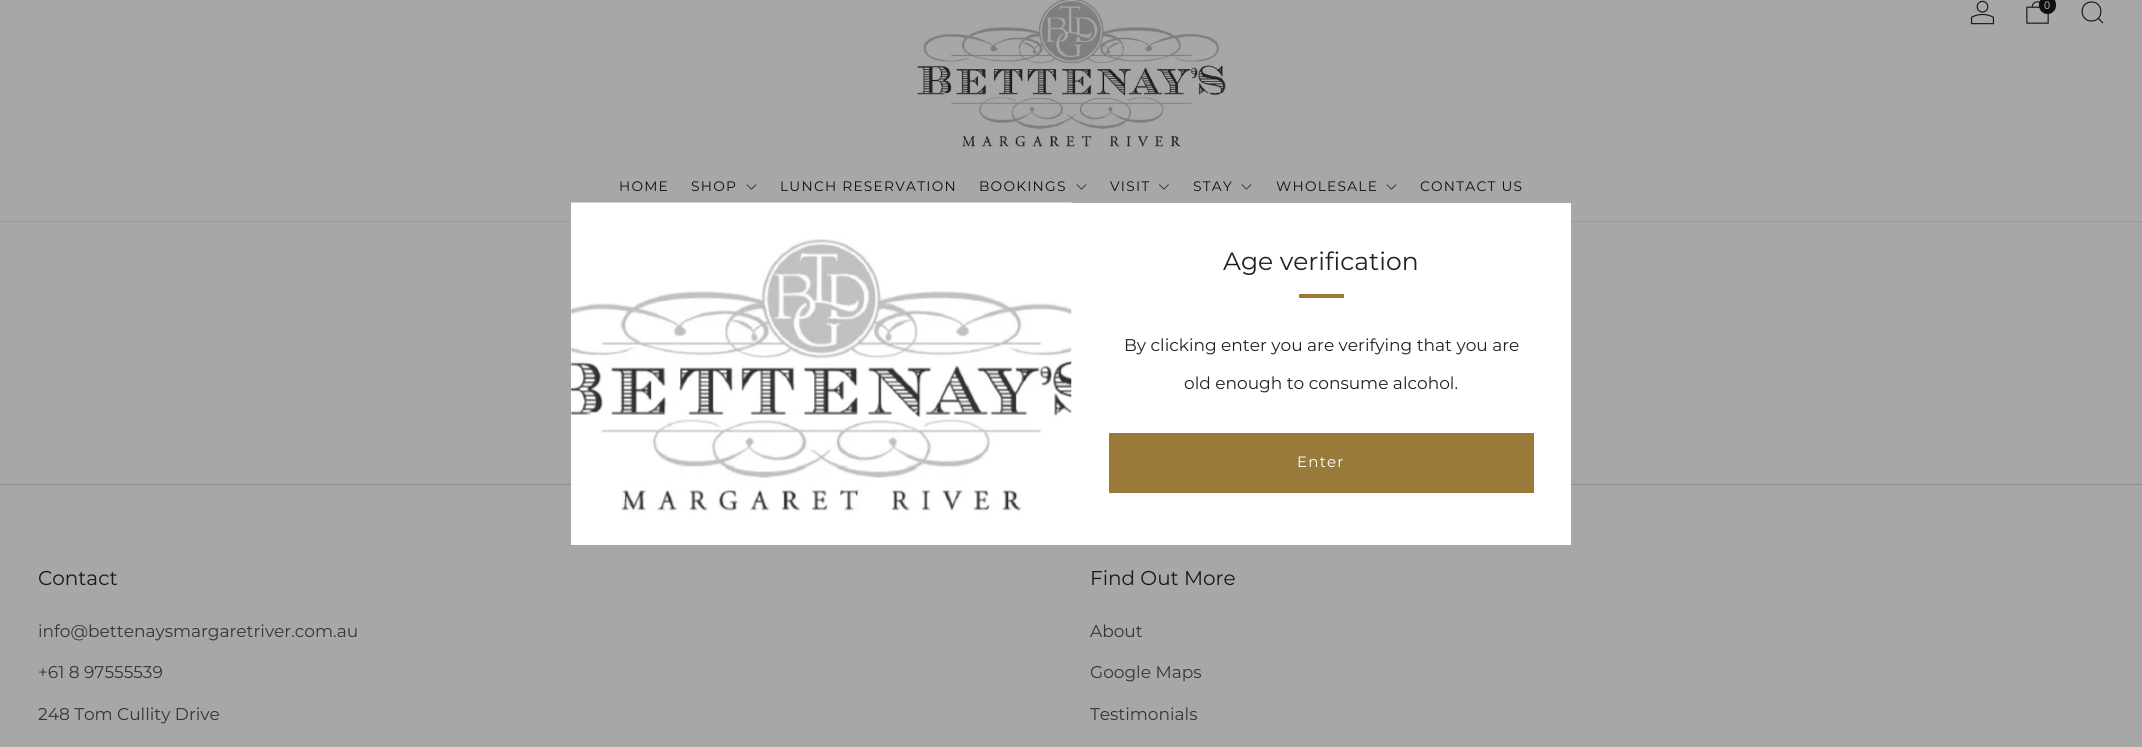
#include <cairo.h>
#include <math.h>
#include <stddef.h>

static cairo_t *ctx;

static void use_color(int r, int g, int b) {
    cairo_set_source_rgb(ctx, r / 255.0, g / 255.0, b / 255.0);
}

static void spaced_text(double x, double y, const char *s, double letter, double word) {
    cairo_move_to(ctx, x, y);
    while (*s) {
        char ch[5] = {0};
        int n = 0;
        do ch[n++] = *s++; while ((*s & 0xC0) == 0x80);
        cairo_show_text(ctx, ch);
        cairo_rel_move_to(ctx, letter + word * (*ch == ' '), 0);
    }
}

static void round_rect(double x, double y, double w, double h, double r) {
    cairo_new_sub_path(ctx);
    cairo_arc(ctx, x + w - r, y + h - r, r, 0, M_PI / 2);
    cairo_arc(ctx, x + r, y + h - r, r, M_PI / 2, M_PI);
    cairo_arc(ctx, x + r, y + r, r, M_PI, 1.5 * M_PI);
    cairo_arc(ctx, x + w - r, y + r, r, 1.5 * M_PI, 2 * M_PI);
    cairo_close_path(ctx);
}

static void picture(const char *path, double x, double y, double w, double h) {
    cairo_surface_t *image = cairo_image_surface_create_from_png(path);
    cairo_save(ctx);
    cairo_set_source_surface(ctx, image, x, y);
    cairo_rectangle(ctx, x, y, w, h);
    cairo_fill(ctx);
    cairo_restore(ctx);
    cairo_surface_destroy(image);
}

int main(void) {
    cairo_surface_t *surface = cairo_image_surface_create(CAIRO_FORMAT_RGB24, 2142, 747);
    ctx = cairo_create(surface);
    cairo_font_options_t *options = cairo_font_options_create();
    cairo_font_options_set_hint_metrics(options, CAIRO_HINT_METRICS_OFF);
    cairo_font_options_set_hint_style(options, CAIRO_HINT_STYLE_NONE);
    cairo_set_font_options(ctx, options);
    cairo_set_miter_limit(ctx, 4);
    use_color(167, 167, 167);
    cairo_paint(ctx);
    use_color(152, 152, 152);
    cairo_rectangle(ctx, 0, 221, 2142, 1);
    cairo_fill(ctx);
    picture("img1.png", 917, 0, 310, 148);
    picture("img2.png", 1971, 0, 23, 25);
    picture("img3.png", 2026, 1, 23, 23);
    use_color(15, 15, 15);
    round_rect(2039, -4, 17, 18, 8.5);
    cairo_fill(ctx);
    cairo_select_font_face(ctx, "Liberation Sans", CAIRO_FONT_SLANT_NORMAL, CAIRO_FONT_WEIGHT_NORMAL);
    cairo_set_font_size(ctx, 11);
    use_color(167, 167, 167);
    cairo_move_to(ctx, 2044, 9);
    cairo_show_text(ctx, "0");
    cairo_new_path(ctx);
    cairo_move_to(ctx, 2091.5, 21);
    cairo_curve_to(ctx, 2104, 21, 2104, 2, 2091.5, 2);
    cairo_curve_to(ctx, 2079, 2, 2079, 21, 2091.5, 21);
    cairo_close_path(ctx);
    cairo_move_to(ctx, 2098.5, 18.5);
    cairo_line_to(ctx, 2103, 23);
    use_color(15, 15, 15);
    cairo_set_line_width(ctx, 1.1);
    cairo_stroke(ctx);
    cairo_select_font_face(ctx, "Montserrat", CAIRO_FONT_SLANT_NORMAL, CAIRO_FONT_WEIGHT_NORMAL);
    cairo_set_font_size(ctx, 13.75);
    spaced_text(619, 191, "HOME", 1.25, 0);
    spaced_text(691, 191, "SHOP", 1.25, 0);
    picture("img4.png", 746, 184, 11, 6);
    spaced_text(780, 191, "LUNCH RESERVATION", 1.25, 0);
    spaced_text(979, 191, "BOOKINGS", 1.25, 0);
    picture("img4.png", 1076, 184, 11, 6);
    spaced_text(1110, 191, "VISIT", 1.25, 0);
    picture("img5.png", 1159, 184, 10, 6);
    spaced_text(1193, 191, "STAY", 1.25, 0);
    picture("img4.png", 1241, 184, 11, 6);
    spaced_text(1276, 191, "WHOLESALE", 1.25, 0);
    picture("img4.png", 1386, 184, 11, 6);
    spaced_text(1420, 191, "CONTACT US", 1.25, 0);
    use_color(139, 139, 139);
    cairo_rectangle(ctx, 0, 484, 2142, 1);
    cairo_fill(ctx);
    cairo_set_font_size(ctx, 20);
    use_color(25, 25, 25);
    cairo_move_to(ctx, 38, 585);
    cairo_show_text(ctx, "Contact");
    cairo_set_font_size(ctx, 17);
    use_color(53, 53, 53);
    cairo_move_to(ctx, 38, 637);
    cairo_show_text(ctx, "info@bettenaysmargaretriver.com.au");
    cairo_move_to(ctx, 38, 678);
    cairo_show_text(ctx, "+61 8 97555539");
    cairo_move_to(ctx, 38, 720);
    cairo_show_text(ctx, "248 Tom Cullity Drive");
    cairo_set_font_size(ctx, 20);
    use_color(25, 25, 25);
    cairo_move_to(ctx, 1090, 585);
    cairo_show_text(ctx, "Find Out More");
    cairo_set_font_size(ctx, 17);
    use_color(53, 53, 53);
    cairo_move_to(ctx, 1090, 637);
    cairo_show_text(ctx, "About");
    cairo_move_to(ctx, 1090, 678);
    cairo_show_text(ctx, "Google Maps");
    cairo_move_to(ctx, 1090, 720);
    cairo_show_text(ctx, "Testimonials");
    use_color(255, 255, 255);
    cairo_rectangle(ctx, 571, 203, 1000, 342);
    cairo_fill(ctx);
    picture("img6.png", 571, 202, 501, 311);
    cairo_set_font_size(ctx, 25);
    use_color(33, 33, 33);
    cairo_move_to(ctx, 1223, 270);
    cairo_show_text(ctx, "Age verification");
    use_color(153, 122, 59);
    cairo_rectangle(ctx, 1299, 294, 45, 4);
    cairo_fill(ctx);
    cairo_set_font_size(ctx, 17);
    use_color(33, 33, 33);
    cairo_move_to(ctx, 1124, 351);
    cairo_show_text(ctx, "By clicking enter you are verifying that you are");
    cairo_move_to(ctx, 1184, 389);
    cairo_show_text(ctx, "old enough to consume alcohol.");
    use_color(153, 122, 59);
    cairo_rectangle(ctx, 1109, 433, 425, 60);
    cairo_fill(ctx);
    cairo_set_font_size(ctx, 15);
    use_color(255, 255, 255);
    spaced_text(1297, 467, "Enter", 1.25, 0);
    cairo_surface_write_to_png(surface, "result.png");
    cairo_font_options_destroy(options);
    cairo_destroy(ctx);
    cairo_surface_destroy(surface);
    return 0;
}
